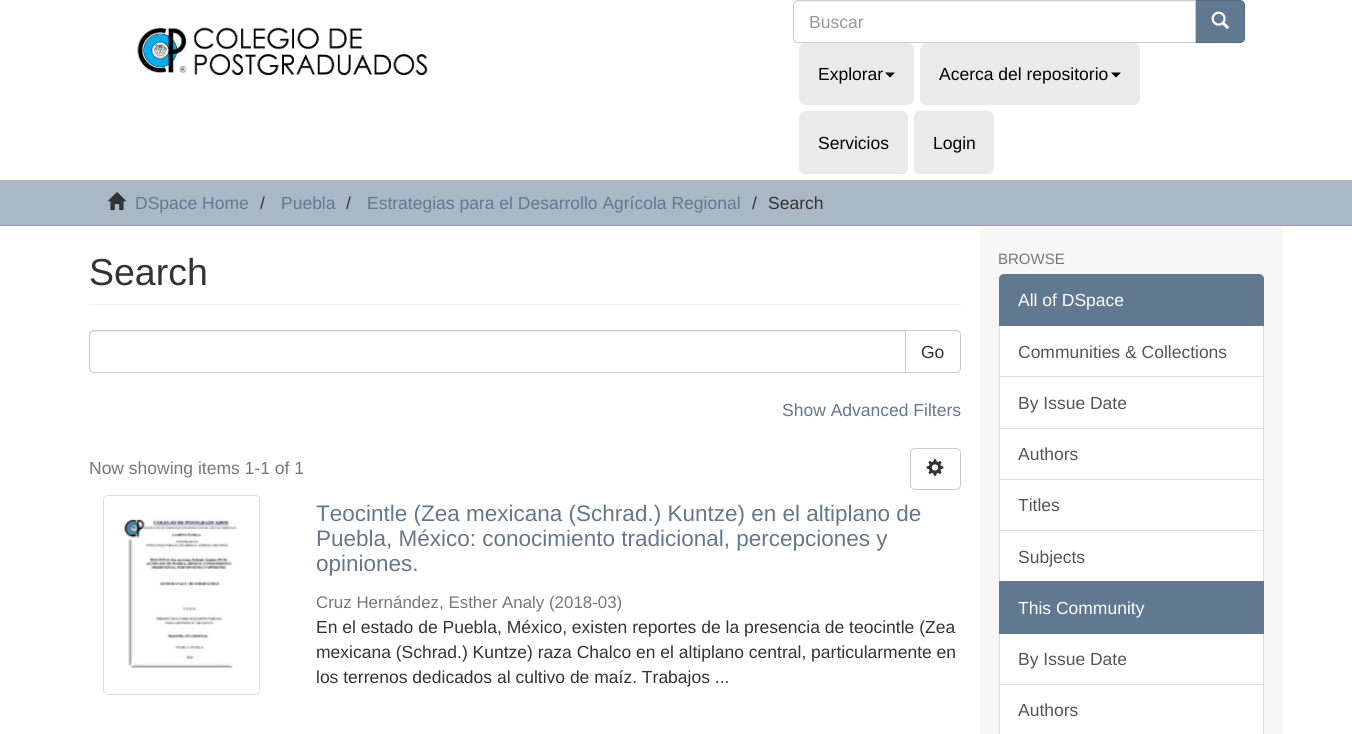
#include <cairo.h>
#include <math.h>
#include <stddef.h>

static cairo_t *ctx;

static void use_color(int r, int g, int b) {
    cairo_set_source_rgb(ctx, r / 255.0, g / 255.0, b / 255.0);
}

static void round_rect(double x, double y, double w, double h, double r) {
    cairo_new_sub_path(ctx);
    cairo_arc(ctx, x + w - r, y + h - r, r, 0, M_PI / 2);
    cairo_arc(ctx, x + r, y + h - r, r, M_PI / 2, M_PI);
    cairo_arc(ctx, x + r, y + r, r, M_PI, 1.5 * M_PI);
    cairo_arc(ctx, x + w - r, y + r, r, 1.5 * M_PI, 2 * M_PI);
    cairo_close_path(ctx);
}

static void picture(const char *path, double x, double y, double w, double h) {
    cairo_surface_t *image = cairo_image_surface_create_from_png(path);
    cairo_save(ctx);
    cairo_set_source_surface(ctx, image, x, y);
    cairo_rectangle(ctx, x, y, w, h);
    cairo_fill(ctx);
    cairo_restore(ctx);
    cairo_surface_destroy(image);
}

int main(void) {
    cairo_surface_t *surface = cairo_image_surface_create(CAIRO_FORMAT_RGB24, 1352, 734);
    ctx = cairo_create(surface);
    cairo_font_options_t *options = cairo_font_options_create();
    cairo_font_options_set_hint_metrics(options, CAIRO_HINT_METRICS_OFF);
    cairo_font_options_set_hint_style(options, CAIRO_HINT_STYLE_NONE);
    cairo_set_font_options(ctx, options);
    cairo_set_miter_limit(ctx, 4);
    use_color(255, 255, 255);
    cairo_paint(ctx);
    picture("img1.png", 137, 27, 291, 49);
    use_color(96, 120, 144);
    cairo_new_path(ctx);
    cairo_move_to(ctx, 1195.5, 0.5);
    cairo_line_to(ctx, 1240, 0.5);
    cairo_curve_to(ctx, 1242.5, 0.5, 1244.5, 2.5, 1244.5, 5);
    cairo_line_to(ctx, 1244.5, 38);
    cairo_curve_to(ctx, 1244.5, 40.5, 1242.5, 42.5, 1240, 42.5);
    cairo_line_to(ctx, 1195.5, 42.5);
    cairo_close_path(ctx);
    cairo_fill_preserve(ctx);
    use_color(86, 107, 129);
    cairo_set_line_width(ctx, 1);
    cairo_stroke(ctx);
    use_color(255, 255, 255);
    cairo_new_path(ctx);
    cairo_move_to(ctx, 798, 0);
    cairo_line_to(ctx, 1196, 0);
    cairo_line_to(ctx, 1196, 43);
    cairo_line_to(ctx, 798, 43);
    cairo_curve_to(ctx, 795, 43, 793, 41, 793, 38);
    cairo_line_to(ctx, 793, 5);
    cairo_curve_to(ctx, 793, 2, 795, 0, 798, 0);
    cairo_close_path(ctx);
    cairo_fill(ctx);
    use_color(236, 236, 236);
    cairo_new_path(ctx);
    cairo_move_to(ctx, 798, 2);
    cairo_line_to(ctx, 1195, 2);
    cairo_line_to(ctx, 1195, 1);
    cairo_line_to(ctx, 798, 1);
    cairo_curve_to(ctx, 795, 1, 794, 3, 794, 6);
    cairo_curve_to(ctx, 794, 4, 795, 2, 798, 2);
    cairo_close_path(ctx);
    cairo_fill(ctx);
    cairo_new_path(ctx);
    cairo_move_to(ctx, 798, 0.5);
    cairo_line_to(ctx, 1195.5, 0.5);
    cairo_line_to(ctx, 1195.5, 42.5);
    cairo_line_to(ctx, 798, 42.5);
    cairo_curve_to(ctx, 795.5, 42.5, 793.5, 40.5, 793.5, 38);
    cairo_line_to(ctx, 793.5, 5);
    cairo_curve_to(ctx, 793.5, 2.5, 795.5, 0.5, 798, 0.5);
    cairo_close_path(ctx);
    use_color(204, 204, 204);
    cairo_stroke(ctx);
    cairo_select_font_face(ctx, "Liberation Sans", CAIRO_FONT_SLANT_NORMAL, CAIRO_FONT_WEIGHT_NORMAL);
    cairo_set_font_size(ctx, 17.5);
    use_color(153, 153, 153);
    cairo_move_to(ctx, 809, 28);
    cairo_show_text(ctx, "Buscar");
    picture("img2.png", 1211, 11, 18, 18);
    use_color(234, 234, 234);
    round_rect(799, 43, 115, 62, 6);
    cairo_fill(ctx);
    use_color(0, 0, 0);
    cairo_move_to(ctx, 818, 80);
    cairo_show_text(ctx, "Explorar");
    cairo_new_path(ctx);
    cairo_move_to(ctx, 885, 72.5);
    cairo_line_to(ctx, 895, 72.5);
    cairo_line_to(ctx, 890, 77.5);
    cairo_close_path(ctx);
    cairo_fill(ctx);
    use_color(234, 234, 234);
    round_rect(920, 43, 220, 62, 6);
    cairo_fill(ctx);
    use_color(0, 0, 0);
    cairo_move_to(ctx, 939, 80);
    cairo_show_text(ctx, "Acerca del repositorio");
    cairo_new_path(ctx);
    cairo_move_to(ctx, 1111, 72.5);
    cairo_line_to(ctx, 1121, 72.5);
    cairo_line_to(ctx, 1116, 77.5);
    cairo_close_path(ctx);
    cairo_fill(ctx);
    use_color(234, 234, 234);
    round_rect(799, 111, 109, 63, 6);
    cairo_fill(ctx);
    use_color(0, 0, 0);
    cairo_move_to(ctx, 818, 149);
    cairo_show_text(ctx, "Servicios");
    use_color(234, 234, 234);
    round_rect(914, 111, 80, 63, 6);
    cairo_fill(ctx);
    use_color(0, 0, 0);
    cairo_move_to(ctx, 933, 149);
    cairo_show_text(ctx, "Login");
    use_color(170, 184, 198);
    cairo_rectangle(ctx, 0, 180, 1352, 45);
    cairo_fill(ctx);
    use_color(139, 158, 178);
    cairo_rectangle(ctx, 0, 225, 1352, 1);
    cairo_fill(ctx);
    picture("img3.png", 107, 192, 20, 18);
    use_color(96, 120, 144);
    cairo_move_to(ctx, 135, 209);
    cairo_show_text(ctx, "DSpace Home");
    use_color(51, 51, 51);
    cairo_move_to(ctx, 260, 209);
    cairo_show_text(ctx, "/");
    use_color(96, 120, 144);
    cairo_move_to(ctx, 281, 209);
    cairo_show_text(ctx, "Puebla");
    use_color(51, 51, 51);
    cairo_move_to(ctx, 346, 209);
    cairo_show_text(ctx, "/");
    use_color(96, 120, 144);
    cairo_move_to(ctx, 367, 209);
    cairo_show_text(ctx, "Estrategias para el Desarrollo Agrícola Regional");
    use_color(51, 51, 51);
    cairo_move_to(ctx, 752, 209);
    cairo_show_text(ctx, "/");
    cairo_move_to(ctx, 768, 209);
    cairo_show_text(ctx, "Search");
    use_color(247, 247, 247);
    cairo_rectangle(ctx, 980, 226, 303, 508);
    cairo_fill(ctx);
    use_color(238, 238, 238);
    cairo_rectangle(ctx, 89, 304, 872, 1);
    cairo_fill(ctx);
    cairo_set_font_size(ctx, 37.5);
    use_color(51, 51, 51);
    cairo_move_to(ctx, 89, 285);
    cairo_show_text(ctx, "Search");
    cairo_new_path(ctx);
    cairo_move_to(ctx, 905.5, 330.5);
    cairo_line_to(ctx, 956, 330.5);
    cairo_curve_to(ctx, 958.5, 330.5, 960.5, 332.5, 960.5, 335);
    cairo_line_to(ctx, 960.5, 368);
    cairo_curve_to(ctx, 960.5, 370.5, 958.5, 372.5, 956, 372.5);
    cairo_line_to(ctx, 905.5, 372.5);
    cairo_close_path(ctx);
    use_color(204, 204, 204);
    cairo_stroke(ctx);
    use_color(255, 255, 255);
    cairo_new_path(ctx);
    cairo_move_to(ctx, 94, 330);
    cairo_line_to(ctx, 906, 330);
    cairo_line_to(ctx, 906, 373);
    cairo_line_to(ctx, 94, 373);
    cairo_curve_to(ctx, 91, 373, 89, 371, 89, 368);
    cairo_line_to(ctx, 89, 335);
    cairo_curve_to(ctx, 89, 332, 91, 330, 94, 330);
    cairo_close_path(ctx);
    cairo_fill(ctx);
    use_color(236, 236, 236);
    cairo_new_path(ctx);
    cairo_move_to(ctx, 94, 332);
    cairo_line_to(ctx, 905, 332);
    cairo_line_to(ctx, 905, 331);
    cairo_line_to(ctx, 94, 331);
    cairo_curve_to(ctx, 91, 331, 90, 333, 90, 336);
    cairo_curve_to(ctx, 90, 334, 92, 332, 94, 332);
    cairo_close_path(ctx);
    cairo_fill(ctx);
    cairo_new_path(ctx);
    cairo_move_to(ctx, 94, 330.5);
    cairo_line_to(ctx, 905.5, 330.5);
    cairo_line_to(ctx, 905.5, 372.5);
    cairo_line_to(ctx, 94, 372.5);
    cairo_curve_to(ctx, 91.5, 372.5, 89.5, 370.5, 89.5, 368);
    cairo_line_to(ctx, 89.5, 335);
    cairo_curve_to(ctx, 89.5, 332.5, 91.5, 330.5, 94, 330.5);
    cairo_close_path(ctx);
    use_color(204, 204, 204);
    cairo_stroke(ctx);
    cairo_set_font_size(ctx, 17.5);
    use_color(51, 51, 51);
    cairo_move_to(ctx, 921, 358);
    cairo_show_text(ctx, "Go");
    use_color(96, 120, 144);
    cairo_move_to(ctx, 782, 416);
    cairo_show_text(ctx, "Show Advanced Filters");
    use_color(119, 119, 119);
    cairo_move_to(ctx, 89, 474);
    cairo_show_text(ctx, "Now showing items 1-1 of 1");
    round_rect(910.5, 448.5, 50, 41, 4.5);
    use_color(204, 204, 204);
    cairo_stroke(ctx);
    picture("img4.png", 926, 459, 18, 17);
    round_rect(103.5, 495.5, 156, 199, 4.5);
    use_color(221, 221, 221);
    cairo_stroke(ctx);
    picture("img5.png", 119, 516, 119, 154);
    cairo_set_font_size(ctx, 22.5);
    use_color(96, 120, 144);
    cairo_move_to(ctx, 316, 521);
    cairo_show_text(ctx, "Teocintle (Zea mexicana (Schrad.) Kuntze) en el altiplano de");
    cairo_move_to(ctx, 316, 546);
    cairo_show_text(ctx, "Puebla, México: conocimiento tradicional, percepciones y");
    cairo_move_to(ctx, 316, 571);
    cairo_show_text(ctx, "opiniones.");
    cairo_set_font_size(ctx, 16.9);
    use_color(119, 119, 119);
    cairo_move_to(ctx, 316, 608);
    cairo_show_text(ctx, "Cruz Hernández, Esther Analy (2018-03)");
    cairo_set_font_size(ctx, 17.5);
    use_color(51, 51, 51);
    cairo_move_to(ctx, 316, 633);
    cairo_show_text(ctx, "En el estado de Puebla, México, existen reportes de la presencia de teocintle (Zea");
    cairo_move_to(ctx, 316, 658);
    cairo_show_text(ctx, "mexicana (Schrad.) Kuntze) raza Chalco en el altiplano central, particularmente en");
    cairo_move_to(ctx, 316, 683);
    cairo_show_text(ctx, "los terrenos dedicados al cultivo de maíz. Trabajos ...");
    cairo_set_font_size(ctx, 15);
    use_color(119, 119, 119);
    cairo_move_to(ctx, 998, 264);
    cairo_show_text(ctx, "BROWSE");
    use_color(255, 255, 255);
    cairo_rectangle(ctx, 1000, 326, 263, 50);
    cairo_fill(ctx);
    cairo_rectangle(ctx, 999.5, 325.5, 264, 52);
    use_color(221, 221, 221);
    cairo_stroke(ctx);
    use_color(96, 120, 144);
    cairo_new_path(ctx);
    cairo_move_to(ctx, 1004, 274.5);
    cairo_line_to(ctx, 1259, 274.5);
    cairo_curve_to(ctx, 1261.5, 274.5, 1263.5, 276.5, 1263.5, 279);
    cairo_line_to(ctx, 1263.5, 325.5);
    cairo_line_to(ctx, 999.5, 325.5);
    cairo_line_to(ctx, 999.5, 279);
    cairo_curve_to(ctx, 999.5, 276.5, 1001.5, 274.5, 1004, 274.5);
    cairo_close_path(ctx);
    cairo_fill_preserve(ctx);
    cairo_stroke(ctx);
    cairo_set_font_size(ctx, 17.5);
    use_color(255, 255, 255);
    cairo_move_to(ctx, 1018, 306);
    cairo_show_text(ctx, "All of DSpace");
    use_color(85, 85, 85);
    cairo_move_to(ctx, 1018, 358);
    cairo_show_text(ctx, "Communities & Collections");
    use_color(255, 255, 255);
    cairo_rectangle(ctx, 999.5, 376.5, 264, 52);
    cairo_fill_preserve(ctx);
    use_color(221, 221, 221);
    cairo_stroke(ctx);
    use_color(85, 85, 85);
    cairo_move_to(ctx, 1018, 409);
    cairo_show_text(ctx, "By Issue Date");
    use_color(255, 255, 255);
    cairo_rectangle(ctx, 999.5, 428.5, 264, 51);
    cairo_fill_preserve(ctx);
    use_color(221, 221, 221);
    cairo_stroke(ctx);
    use_color(85, 85, 85);
    cairo_move_to(ctx, 1018, 460);
    cairo_show_text(ctx, "Authors");
    use_color(255, 255, 255);
    cairo_rectangle(ctx, 999.5, 479.5, 264, 51);
    cairo_fill_preserve(ctx);
    use_color(221, 221, 221);
    cairo_stroke(ctx);
    use_color(85, 85, 85);
    cairo_move_to(ctx, 1018, 511);
    cairo_show_text(ctx, "Titles");
    use_color(255, 255, 255);
    cairo_rectangle(ctx, 1000, 531, 263, 50);
    cairo_fill(ctx);
    cairo_rectangle(ctx, 999.5, 530.5, 264, 52);
    use_color(221, 221, 221);
    cairo_stroke(ctx);
    use_color(85, 85, 85);
    cairo_move_to(ctx, 1018, 563);
    cairo_show_text(ctx, "Subjects");
    use_color(255, 255, 255);
    cairo_rectangle(ctx, 999.5, 633.5, 264, 51);
    cairo_fill_preserve(ctx);
    use_color(221, 221, 221);
    cairo_stroke(ctx);
    use_color(96, 120, 144);
    cairo_rectangle(ctx, 999, 581, 265, 53);
    cairo_fill(ctx);
    use_color(255, 255, 255);
    cairo_move_to(ctx, 1018, 614);
    cairo_show_text(ctx, "This Community");
    use_color(85, 85, 85);
    cairo_move_to(ctx, 1018, 665);
    cairo_show_text(ctx, "By Issue Date");
    use_color(255, 255, 255);
    cairo_rectangle(ctx, 999.5, 684.5, 264, 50);
    cairo_fill_preserve(ctx);
    use_color(221, 221, 221);
    cairo_stroke(ctx);
    use_color(85, 85, 85);
    cairo_move_to(ctx, 1018, 716);
    cairo_show_text(ctx, "Authors");
    cairo_surface_write_to_png(surface, "result.png");
    cairo_font_options_destroy(options);
    cairo_destroy(ctx);
    cairo_surface_destroy(surface);
    return 0;
}
